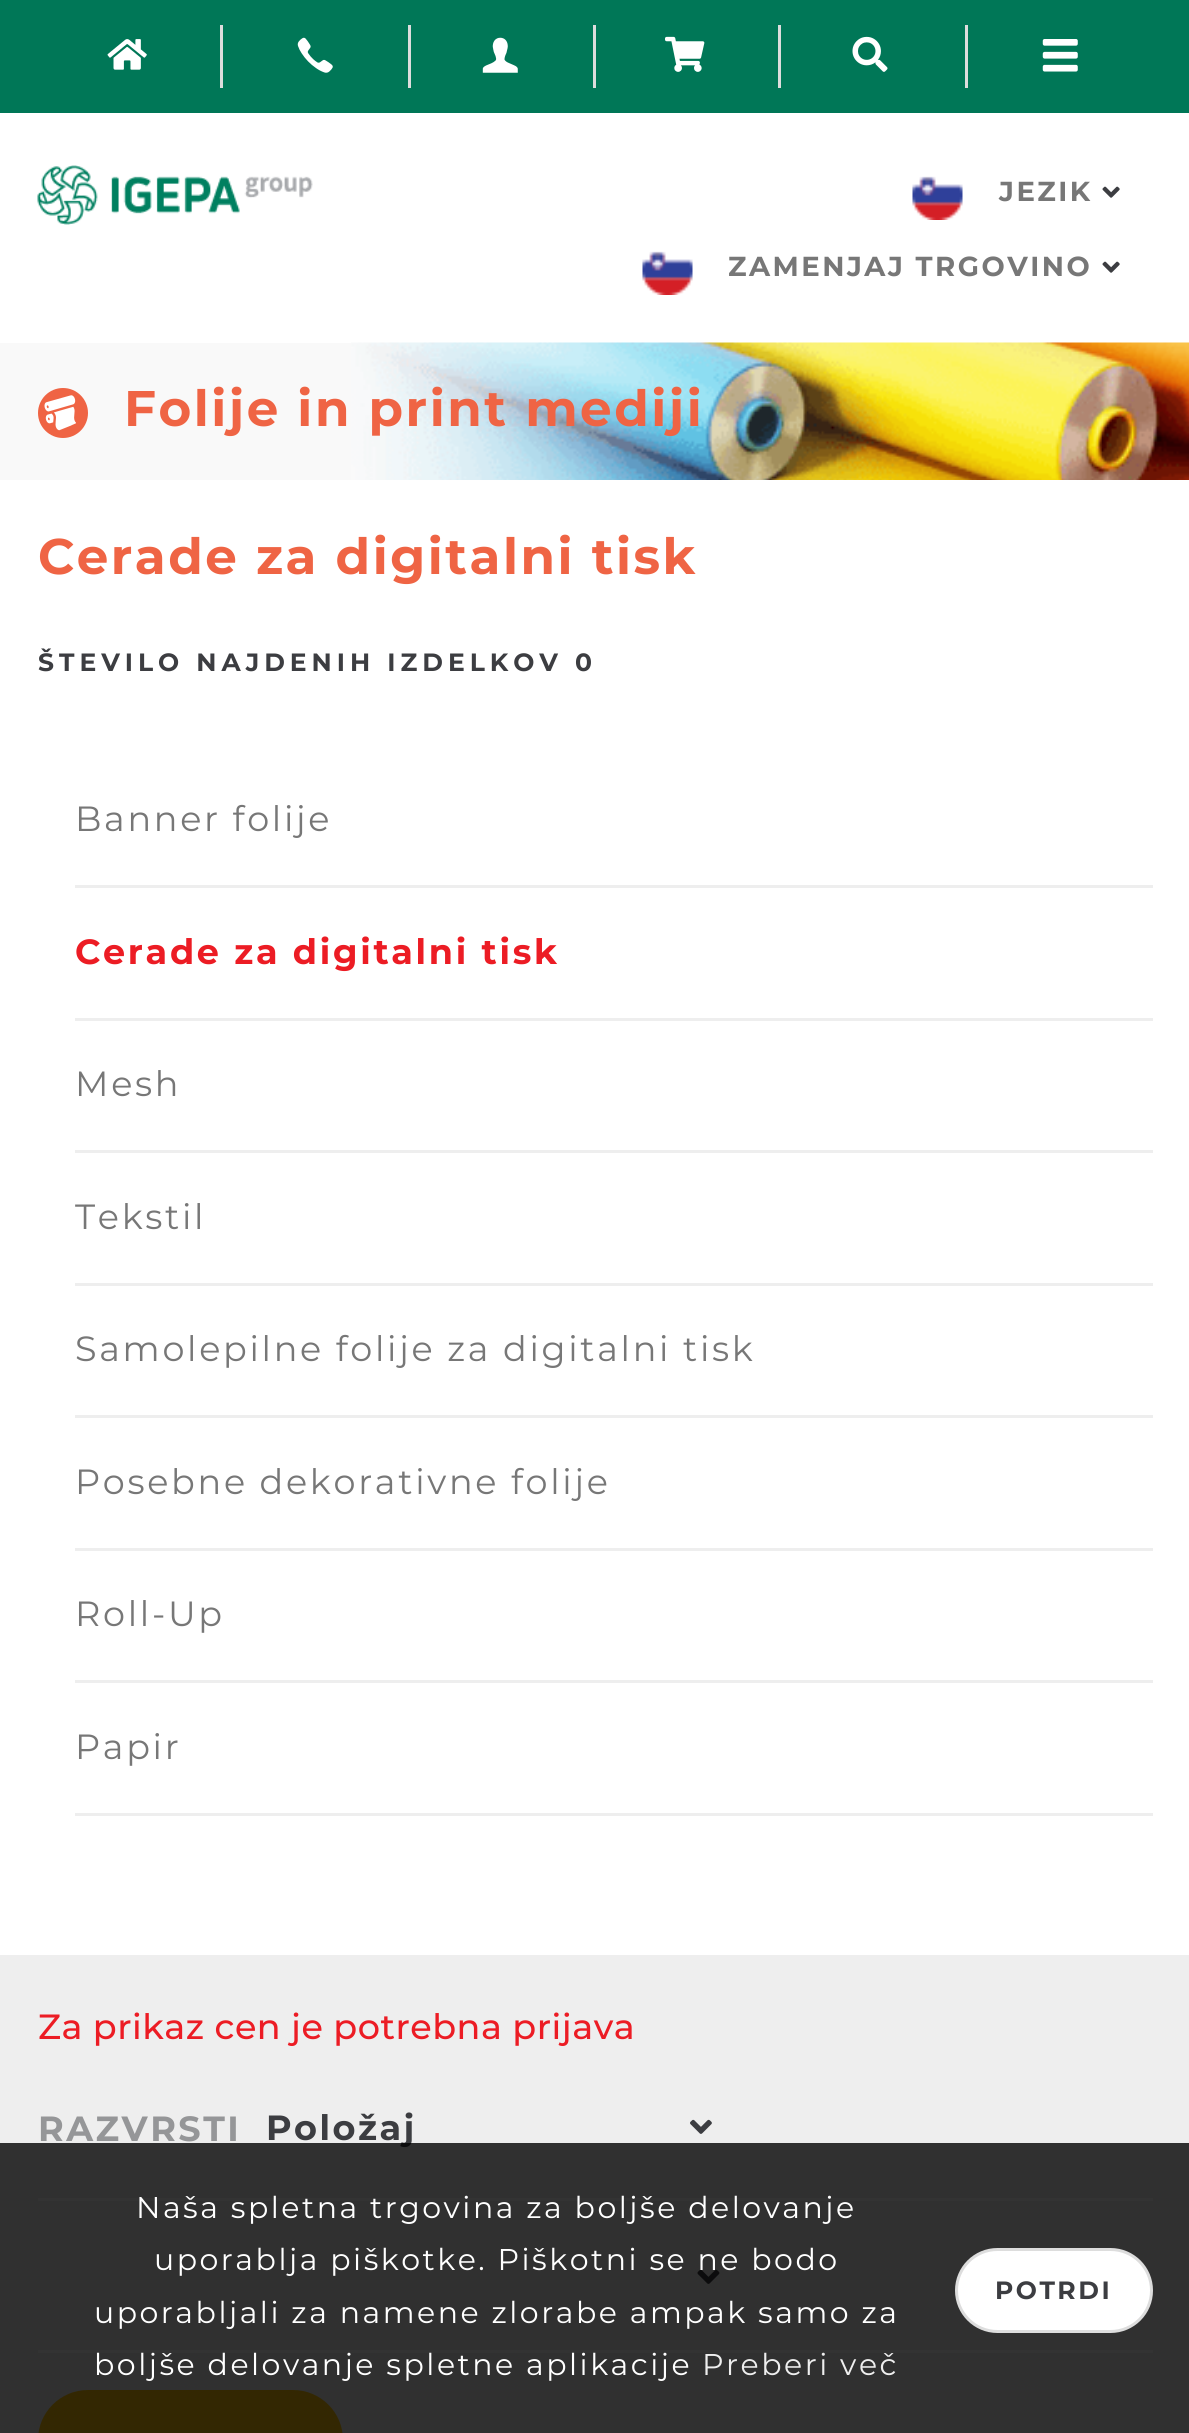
#include <cairo.h>
#include <math.h>
#include <stddef.h>

static cairo_t *ctx;

static void use_color(int r, int g, int b) {
    cairo_set_source_rgb(ctx, r / 255.0, g / 255.0, b / 255.0);
}

static void spaced_text(double x, double y, const char *s, double letter, double word) {
    cairo_move_to(ctx, x, y);
    while (*s) {
        char ch[5] = {0};
        int n = 0;
        do ch[n++] = *s++; while ((*s & 0xC0) == 0x80);
        cairo_show_text(ctx, ch);
        cairo_rel_move_to(ctx, letter + word * (*ch == ' '), 0);
    }
}

static void round_rect(double x, double y, double w, double h, double r) {
    cairo_new_sub_path(ctx);
    cairo_arc(ctx, x + w - r, y + h - r, r, 0, M_PI / 2);
    cairo_arc(ctx, x + r, y + h - r, r, M_PI / 2, M_PI);
    cairo_arc(ctx, x + r, y + r, r, M_PI, 1.5 * M_PI);
    cairo_arc(ctx, x + w - r, y + r, r, 1.5 * M_PI, 2 * M_PI);
    cairo_close_path(ctx);
}

static void picture(const char *path, double x, double y, double w, double h) {
    cairo_surface_t *image = cairo_image_surface_create_from_png(path);
    cairo_save(ctx);
    cairo_set_source_surface(ctx, image, x, y);
    cairo_rectangle(ctx, x, y, w, h);
    cairo_fill(ctx);
    cairo_restore(ctx);
    cairo_surface_destroy(image);
}

int main(void) {
    cairo_surface_t *surface = cairo_image_surface_create(CAIRO_FORMAT_RGB24, 1189, 2433);
    ctx = cairo_create(surface);
    cairo_font_options_t *options = cairo_font_options_create();
    cairo_font_options_set_hint_metrics(options, CAIRO_HINT_METRICS_OFF);
    cairo_font_options_set_hint_style(options, CAIRO_HINT_STYLE_NONE);
    cairo_set_font_options(ctx, options);
    cairo_set_miter_limit(ctx, 4);
    use_color(255, 255, 255);
    cairo_paint(ctx);
    use_color(0, 119, 87);
    cairo_rectangle(ctx, 0, 0, 1189, 113);
    cairo_fill(ctx);
    use_color(221, 221, 221);
    cairo_rectangle(ctx, 220, 25, 3, 63);
    cairo_fill(ctx);
    picture("img1.png", 107, 39, 40, 31);
    cairo_rectangle(ctx, 408, 25, 3, 63);
    cairo_fill(ctx);
    picture("img2.png", 297, 37, 36, 36);
    cairo_rectangle(ctx, 593, 25, 3, 63);
    cairo_fill(ctx);
    picture("img3.png", 482, 37, 36, 36);
    cairo_rectangle(ctx, 778, 25, 3, 63);
    cairo_fill(ctx);
    picture("img4.png", 665, 36, 40, 36);
    cairo_rectangle(ctx, 965, 25, 3, 63);
    cairo_fill(ctx);
    picture("img5.png", 852, 36, 36, 36);
    picture("img6.png", 1042, 39, 36, 33);
    picture("img7.png", 37, 165, 276, 60);
    picture("img8.png", 912, 176, 51, 44);
    cairo_select_font_face(ctx, "Montserrat", CAIRO_FONT_SLANT_NORMAL, CAIRO_FONT_WEIGHT_BOLD);
    cairo_set_font_size(ctx, 27.5);
    use_color(119, 119, 119);
    spaced_text(999, 201, "JEZIK", 2.5, 0);
    picture("img9.png", 1102, 186, 18, 12);
    picture("img8.png", 642, 251, 51, 44);
    spaced_text(728, 276, "ZAMENJAJ TRGOVINO", 2.5, 0);
    picture("img9.png", 1102, 261, 18, 12);
    use_color(249, 249, 249);
    cairo_rectangle(ctx, 0, 343, 351, 137);
    cairo_fill(ctx);
    picture("img10.png", 351, 342, 838, 138);
    use_color(239, 100, 68);
    cairo_arc(ctx, 63, 413, 25, 0, 2 * M_PI);
    cairo_fill(ctx);
    picture("img11.png", 44, 395, 32, 36);
    cairo_set_font_size(ctx, 50);
    spaced_text(124, 426, "Folije in print mediji", 2.5, 0);
    spaced_text(38, 574, "Cerade za digitalni tisk", 2.5, 0);
    cairo_set_font_size(ctx, 25);
    use_color(60, 61, 65);
    spaced_text(38, 671, "ŠTEVILO NAJDENIH IZDELKOV 0", 5, 0);
    use_color(238, 238, 238);
    cairo_rectangle(ctx, 75, 885, 1078, 3);
    cairo_fill(ctx);
    cairo_select_font_face(ctx, "Montserrat", CAIRO_FONT_SLANT_NORMAL, CAIRO_FONT_WEIGHT_NORMAL);
    cairo_set_font_size(ctx, 35);
    use_color(119, 119, 119);
    spaced_text(75, 831, "Banner folije", 2.7, 0);
    use_color(238, 238, 238);
    cairo_rectangle(ctx, 75, 1018, 1078, 3);
    cairo_fill(ctx);
    cairo_select_font_face(ctx, "Montserrat", CAIRO_FONT_SLANT_NORMAL, CAIRO_FONT_WEIGHT_BOLD);
    use_color(236, 28, 36);
    spaced_text(75, 964, "Cerade za digitalni tisk", 2.7, 0);
    use_color(238, 238, 238);
    cairo_rectangle(ctx, 75, 1150, 1078, 3);
    cairo_fill(ctx);
    cairo_select_font_face(ctx, "Montserrat", CAIRO_FONT_SLANT_NORMAL, CAIRO_FONT_WEIGHT_NORMAL);
    use_color(119, 119, 119);
    spaced_text(75, 1096, "Mesh", 2.7, 0);
    use_color(238, 238, 238);
    cairo_rectangle(ctx, 75, 1283, 1078, 3);
    cairo_fill(ctx);
    use_color(119, 119, 119);
    spaced_text(75, 1229, "Tekstil", 2.7, 0);
    use_color(238, 238, 238);
    cairo_rectangle(ctx, 75, 1415, 1078, 3);
    cairo_fill(ctx);
    use_color(119, 119, 119);
    spaced_text(75, 1361, "Samolepilne folije za digitalni tisk", 2.7, 0);
    use_color(238, 238, 238);
    cairo_rectangle(ctx, 75, 1548, 1078, 3);
    cairo_fill(ctx);
    use_color(119, 119, 119);
    spaced_text(75, 1494, "Posebne dekorativne folije", 2.7, 0);
    use_color(238, 238, 238);
    cairo_rectangle(ctx, 75, 1680, 1078, 3);
    cairo_fill(ctx);
    use_color(119, 119, 119);
    spaced_text(75, 1626, "Roll-Up", 2.7, 0);
    use_color(238, 238, 238);
    cairo_rectangle(ctx, 75, 1813, 1078, 3);
    cairo_fill(ctx);
    use_color(119, 119, 119);
    spaced_text(75, 1759, "Papir", 2.7, 0);
    use_color(238, 238, 238);
    cairo_rectangle(ctx, 0, 1955, 1189, 478);
    cairo_fill(ctx);
    cairo_select_font_face(ctx, "Montserrat Medium", CAIRO_FONT_SLANT_NORMAL, CAIRO_FONT_WEIGHT_NORMAL);
    use_color(236, 28, 36);
    spaced_text(38, 2039, "Za prikaz cen je potrebna prijava", 0.5, 0);
    use_color(255, 255, 255);
    cairo_rectangle(ctx, 38, 2198, 1115, 3);
    cairo_fill(ctx);
    cairo_select_font_face(ctx, "Montserrat", CAIRO_FONT_SLANT_NORMAL, CAIRO_FONT_WEIGHT_BOLD);
    use_color(149, 150, 152);
    spaced_text(38, 2141, "RAZVRSTI", 2.5, 0);
    use_color(60, 61, 65);
    spaced_text(266, 2140, "Položaj", 2.5, 0);
    picture("img12.png", 690, 2119, 22, 15);
    use_color(255, 255, 255);
    cairo_rectangle(ctx, 38, 2350, 1115, 3);
    cairo_fill(ctx);
    picture("img13.png", 697, 2269, 23, 15);
    use_color(255, 197, 10);
    round_rect(38, 2390, 305, 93, 50);
    cairo_fill(ctx);
    cairo_set_source_rgba(ctx, 0, 0, 0, 0.8);
    cairo_rectangle(ctx, 0, 2143, 1189, 290);
    cairo_fill(ctx);
    cairo_select_font_face(ctx, "Montserrat", CAIRO_FONT_SLANT_NORMAL, CAIRO_FONT_WEIGHT_NORMAL);
    cairo_set_font_size(ctx, 30);
    use_color(255, 255, 255);
    spaced_text(136, 2218, "Naša spletna trgovina za boljše delovanje", 2.5, 0);
    spaced_text(154, 2270, "uporablja piškotke. Piškotni se ne bodo", 2.5, 0);
    spaced_text(94, 2323, "uporabljali za namene zlorabe ampak samo za", 2.5, 0);
    spaced_text(94, 2375, "boljše delovanje spletne aplikacije", 2.5, 0);
    use_color(238, 238, 238);
    spaced_text(702, 2375, "Preberi več", 2.5, 0);
    use_color(255, 255, 255);
    round_rect(956.5, 2249.5, 195, 82, 41);
    cairo_fill_preserve(ctx);
    use_color(221, 221, 221);
    cairo_set_line_width(ctx, 3);
    cairo_stroke(ctx);
    cairo_select_font_face(ctx, "Montserrat", CAIRO_FONT_SLANT_NORMAL, CAIRO_FONT_WEIGHT_BOLD);
    cairo_set_font_size(ctx, 25);
    use_color(60, 61, 65);
    spaced_text(995, 2299, "POTRDI", 2.5, 0);
    cairo_surface_write_to_png(surface, "result.png");
    cairo_font_options_destroy(options);
    cairo_destroy(ctx);
    cairo_surface_destroy(surface);
    return 0;
}
